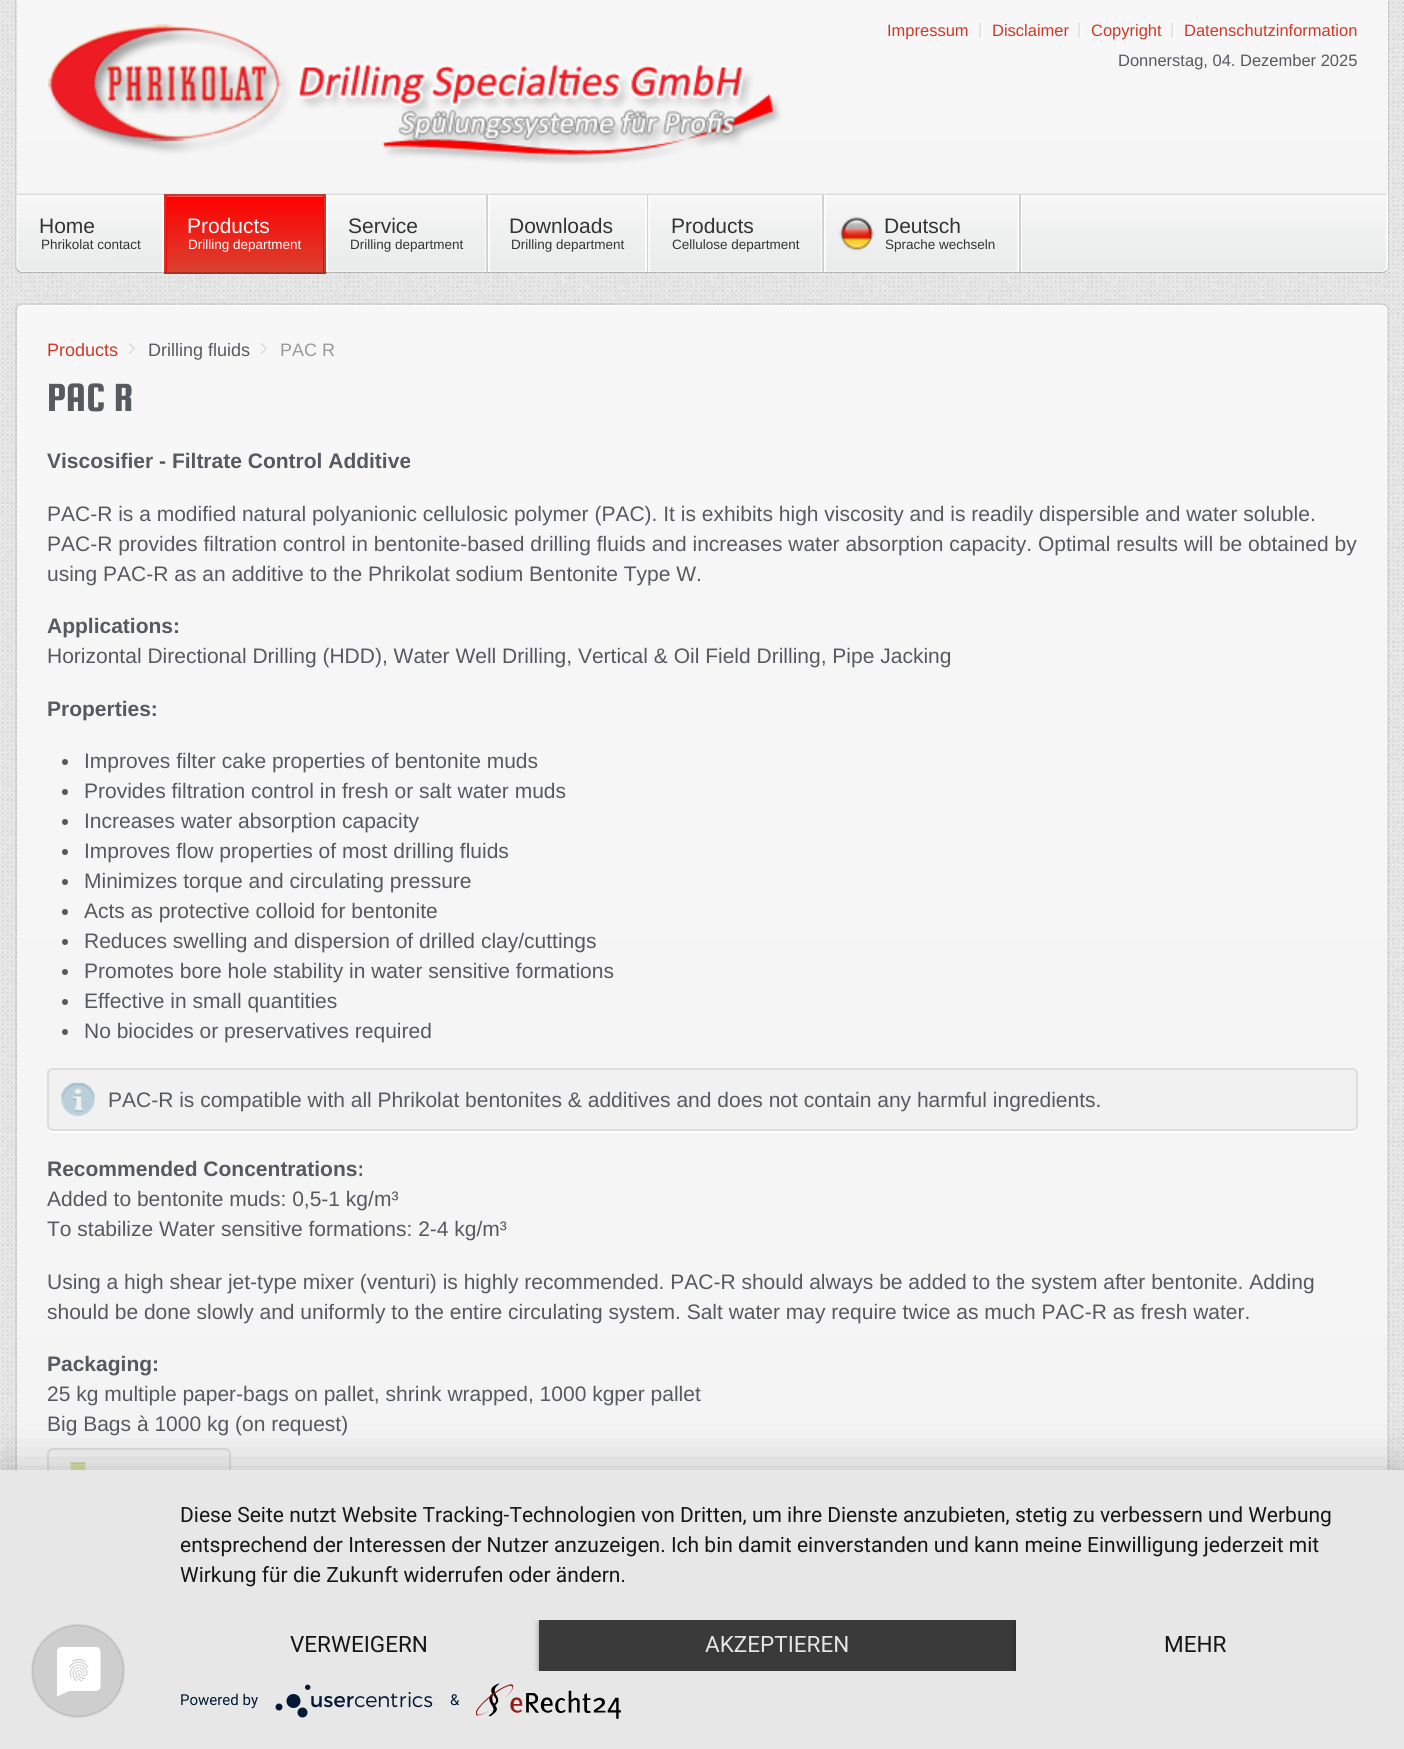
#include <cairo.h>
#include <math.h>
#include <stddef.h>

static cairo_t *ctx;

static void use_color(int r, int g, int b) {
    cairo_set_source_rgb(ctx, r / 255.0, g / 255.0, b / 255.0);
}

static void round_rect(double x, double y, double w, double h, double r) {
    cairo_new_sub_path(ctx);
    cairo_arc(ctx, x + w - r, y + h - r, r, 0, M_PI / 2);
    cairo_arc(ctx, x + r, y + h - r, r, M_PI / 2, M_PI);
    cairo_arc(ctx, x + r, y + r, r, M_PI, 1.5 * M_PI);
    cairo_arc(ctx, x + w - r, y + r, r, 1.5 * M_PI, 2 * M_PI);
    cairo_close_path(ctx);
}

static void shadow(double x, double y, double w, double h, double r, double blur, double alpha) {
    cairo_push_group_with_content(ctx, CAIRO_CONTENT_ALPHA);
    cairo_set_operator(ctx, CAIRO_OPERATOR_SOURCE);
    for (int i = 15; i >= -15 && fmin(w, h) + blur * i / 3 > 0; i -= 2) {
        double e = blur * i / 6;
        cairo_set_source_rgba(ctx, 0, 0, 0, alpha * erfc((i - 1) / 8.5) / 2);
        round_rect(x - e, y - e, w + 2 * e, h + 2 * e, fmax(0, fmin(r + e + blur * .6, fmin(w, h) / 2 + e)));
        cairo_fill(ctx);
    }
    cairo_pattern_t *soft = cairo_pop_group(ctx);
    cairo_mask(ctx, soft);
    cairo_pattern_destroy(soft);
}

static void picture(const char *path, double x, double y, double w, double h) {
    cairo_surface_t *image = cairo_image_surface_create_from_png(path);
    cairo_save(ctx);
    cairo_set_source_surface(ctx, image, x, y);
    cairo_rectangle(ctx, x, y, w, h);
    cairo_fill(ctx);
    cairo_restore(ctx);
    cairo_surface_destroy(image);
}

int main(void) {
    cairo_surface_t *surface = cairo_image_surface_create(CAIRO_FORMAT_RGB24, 1404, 1749);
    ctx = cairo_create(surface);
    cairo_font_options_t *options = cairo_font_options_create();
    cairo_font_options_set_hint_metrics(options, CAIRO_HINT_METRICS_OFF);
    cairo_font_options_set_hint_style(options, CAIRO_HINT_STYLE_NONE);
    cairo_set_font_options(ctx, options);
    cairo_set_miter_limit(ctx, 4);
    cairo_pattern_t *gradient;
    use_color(255, 255, 255);
    cairo_paint(ctx);
    picture("img1.png", 0, 0, 1404, 1470);
    gradient = cairo_pattern_create_linear(702, 0, 702, 272);
    cairo_pattern_add_color_stop_rgba(gradient, 0, 0.969, 0.969, 0.969, 1);
    cairo_pattern_add_color_stop_rgba(gradient, 1, 0.957, 0.957, 0.957, 1);
    cairo_set_source(ctx, gradient);
    cairo_pattern_destroy(gradient);
    cairo_new_path(ctx);
    cairo_move_to(ctx, 17, 0);
    cairo_line_to(ctx, 1388, 0);
    cairo_line_to(ctx, 1388, 266);
    cairo_curve_to(ctx, 1388, 269.5, 1385.5, 272, 1382, 272);
    cairo_line_to(ctx, 23, 272);
    cairo_curve_to(ctx, 19.5, 272, 17, 269.5, 17, 266);
    cairo_close_path(ctx);
    cairo_fill(ctx);
    cairo_set_source_rgba(ctx, 0, 0, 0, 0.1);
    cairo_new_path(ctx);
    cairo_move_to(ctx, 1389, 0);
    cairo_line_to(ctx, 1388, 0);
    cairo_line_to(ctx, 1388, 267);
    cairo_line_to(ctx, 1386, 270);
    cairo_line_to(ctx, 1387, 271);
    cairo_curve_to(ctx, 1388, 270, 1389, 268, 1389, 266);
    cairo_close_path(ctx);
    cairo_fill(ctx);
    cairo_set_source_rgba(ctx, 0, 0, 0, 0.2);
    cairo_new_path(ctx);
    cairo_move_to(ctx, 22, 273);
    cairo_line_to(ctx, 1382, 273);
    cairo_curve_to(ctx, 1384, 273, 1386, 272, 1387, 271);
    cairo_line_to(ctx, 1386, 270);
    cairo_curve_to(ctx, 1385, 271, 1384, 272, 1382, 272);
    cairo_line_to(ctx, 22, 272);
    cairo_curve_to(ctx, 20, 272, 19, 271, 18, 270);
    cairo_line_to(ctx, 17, 271);
    cairo_curve_to(ctx, 18, 272, 20, 273, 22, 273);
    cairo_close_path(ctx);
    cairo_fill(ctx);
    cairo_set_source_rgba(ctx, 0, 0, 0, 0.1);
    cairo_new_path(ctx);
    cairo_move_to(ctx, 15, 0);
    cairo_line_to(ctx, 16, 0);
    cairo_line_to(ctx, 16, 267);
    cairo_line_to(ctx, 18, 270);
    cairo_line_to(ctx, 17, 271);
    cairo_curve_to(ctx, 16, 270, 15, 268, 15, 266);
    cairo_close_path(ctx);
    cairo_fill(ctx);
    picture("img2.png", 47, 23, 734, 141);
    cairo_select_font_face(ctx, "Liberation Sans", CAIRO_FONT_SLANT_NORMAL, CAIRO_FONT_WEIGHT_NORMAL);
    cairo_set_font_size(ctx, 16.5);
    use_color(210, 55, 38);
    cairo_move_to(ctx, 887, 36);
    cairo_show_text(ctx, "Impressum");
    picture("img3.png", 979, 22, 4, 16);
    cairo_move_to(ctx, 992, 36);
    cairo_show_text(ctx, "Disclaimer");
    picture("img3.png", 1078, 22, 4, 16);
    cairo_move_to(ctx, 1091, 36);
    cairo_show_text(ctx, "Copyright");
    picture("img3.png", 1171, 22, 4, 16);
    cairo_move_to(ctx, 1184, 36);
    cairo_show_text(ctx, "Datenschutzinformation");
    use_color(86, 89, 94);
    cairo_move_to(ctx, 1118, 66);
    cairo_show_text(ctx, "Donnerstag, 04. Dezember 2025");
    picture("img4.png", 16, 193, 1372, 78);
    cairo_set_source_rgba(ctx, 1, 1, 1, 0.8);
    cairo_new_path(ctx);
    cairo_move_to(ctx, 1380, 272);
    cairo_line_to(ctx, 1382, 272);
    cairo_curve_to(ctx, 1385, 272, 1388, 269, 1388, 266);
    cairo_line_to(ctx, 1388, 194);
    cairo_line_to(ctx, 1386, 194);
    cairo_line_to(ctx, 1386, 266);
    cairo_curve_to(ctx, 1386, 269, 1383, 272, 1380, 272);
    cairo_close_path(ctx);
    cairo_fill(ctx);
    use_color(255, 255, 255);
    cairo_rectangle(ctx, 1021, 195, 1, 77);
    cairo_fill(ctx);
    cairo_set_source_rgba(ctx, 1, 1, 1, 0.8);
    cairo_new_path(ctx);
    cairo_move_to(ctx, 17, 195);
    cairo_line_to(ctx, 17, 264);
    cairo_curve_to(ctx, 17, 268, 21, 272, 25, 272);
    cairo_line_to(ctx, 26, 272);
    cairo_curve_to(ctx, 21, 272, 18, 268, 18, 264);
    cairo_line_to(ctx, 18, 195);
    cairo_close_path(ctx);
    cairo_fill(ctx);
    cairo_rectangle(ctx, 162, 195, 2, 77);
    cairo_fill(ctx);
    cairo_set_font_size(ctx, 21);
    use_color(51, 51, 51);
    cairo_move_to(ctx, 39, 233);
    cairo_show_text(ctx, "Home");
    cairo_set_font_size(ctx, 13.5);
    cairo_move_to(ctx, 41, 249);
    cairo_show_text(ctx, "Phrikolat contact");
    gradient = cairo_pattern_create_linear(245, 195, 245, 272);
    cairo_pattern_add_color_stop_rgba(gradient, 0, 1, 0, 0, 1);
    cairo_pattern_add_color_stop_rgba(gradient, 1, 0.851, 0.255, 0.188, 1);
    cairo_set_source(ctx, gradient);
    cairo_pattern_destroy(gradient);
    cairo_rectangle(ctx, 167, 197, 156, 75);
    cairo_fill(ctx);
    use_color(255, 77, 77);
    cairo_rectangle(ctx, 164, 196, 162, 1);
    cairo_fill(ctx);
    use_color(188, 64, 51);
    cairo_rectangle(ctx, 164, 194, 162, 2);
    cairo_fill(ctx);
    use_color(163, 49, 36);
    cairo_rectangle(ctx, 164, 272, 162, 2);
    cairo_fill(ctx);
    use_color(255, 0, 0);
    cairo_rectangle(ctx, 166, 195, 1, 77);
    cairo_fill(ctx);
    cairo_rectangle(ctx, 323, 195, 1, 77);
    cairo_fill(ctx);
    use_color(196, 61, 47);
    cairo_rectangle(ctx, 324, 195, 2, 77);
    cairo_fill(ctx);
    cairo_rectangle(ctx, 164, 195, 2, 77);
    cairo_fill(ctx);
    cairo_set_font_size(ctx, 21);
    use_color(255, 255, 255);
    cairo_move_to(ctx, 187, 233);
    cairo_show_text(ctx, "Products");
    cairo_set_font_size(ctx, 13.5);
    cairo_move_to(ctx, 188, 249);
    cairo_show_text(ctx, "Drilling department");
    cairo_set_source_rgba(ctx, 1, 1, 1, 0.8);
    cairo_rectangle(ctx, 326, 195, 2, 77);
    cairo_fill(ctx);
    cairo_rectangle(ctx, 485, 195, 1, 77);
    cairo_fill(ctx);
    use_color(209, 209, 209);
    cairo_rectangle(ctx, 486, 195, 2, 77);
    cairo_fill(ctx);
    cairo_set_font_size(ctx, 21);
    use_color(51, 51, 51);
    cairo_move_to(ctx, 348, 233);
    cairo_show_text(ctx, "Service");
    cairo_set_font_size(ctx, 13.5);
    cairo_move_to(ctx, 350, 249);
    cairo_show_text(ctx, "Drilling department");
    cairo_set_source_rgba(ctx, 1, 1, 1, 0.8);
    cairo_rectangle(ctx, 488, 195, 2, 77);
    cairo_fill(ctx);
    cairo_rectangle(ctx, 645, 195, 2, 77);
    cairo_fill(ctx);
    use_color(209, 209, 209);
    cairo_rectangle(ctx, 647, 195, 2, 77);
    cairo_fill(ctx);
    cairo_set_font_size(ctx, 21);
    use_color(51, 51, 51);
    cairo_move_to(ctx, 509, 233);
    cairo_show_text(ctx, "Downloads");
    cairo_set_font_size(ctx, 13.5);
    cairo_move_to(ctx, 511, 249);
    cairo_show_text(ctx, "Drilling department");
    cairo_set_source_rgba(ctx, 1, 1, 1, 0.8);
    cairo_rectangle(ctx, 648, 195, 2, 77);
    cairo_fill(ctx);
    cairo_rectangle(ctx, 821, 195, 1, 77);
    cairo_fill(ctx);
    use_color(209, 209, 209);
    cairo_rectangle(ctx, 822, 195, 2, 77);
    cairo_fill(ctx);
    cairo_set_font_size(ctx, 21);
    use_color(51, 51, 51);
    cairo_move_to(ctx, 671, 233);
    cairo_show_text(ctx, "Products");
    cairo_set_font_size(ctx, 13.5);
    cairo_move_to(ctx, 672, 249);
    cairo_show_text(ctx, "Cellulose department");
    cairo_set_source_rgba(ctx, 1, 1, 1, 0.8);
    cairo_rectangle(ctx, 824, 195, 2, 77);
    cairo_fill(ctx);
    cairo_rectangle(ctx, 1017, 195, 2, 77);
    cairo_fill(ctx);
    use_color(209, 209, 209);
    cairo_rectangle(ctx, 1019, 195, 2, 77);
    cairo_fill(ctx);
    picture("img5.png", 838, 217, 37, 34);
    cairo_set_font_size(ctx, 21);
    use_color(51, 51, 51);
    cairo_move_to(ctx, 884, 233);
    cairo_show_text(ctx, "Deutsch");
    cairo_set_font_size(ctx, 13.5);
    cairo_move_to(ctx, 885, 249);
    cairo_show_text(ctx, "Sprache wechseln");
    gradient = cairo_pattern_create_linear(702, 304, 702, 1521);
    cairo_pattern_add_color_stop_rgba(gradient, 0, 0.969, 0.969, 0.969, 1);
    cairo_pattern_add_color_stop_rgba(gradient, 1, 0.957, 0.957, 0.957, 1);
    cairo_set_source(ctx, gradient);
    cairo_pattern_destroy(gradient);
    round_rect(17, 305, 1371, 1216, 6);
    cairo_fill(ctx);
    use_color(255, 255, 255);
    cairo_new_path(ctx);
    cairo_move_to(ctx, 22, 306);
    cairo_line_to(ctx, 1382, 306);
    cairo_curve_to(ctx, 1385, 306, 1388, 309, 1388, 312);
    cairo_line_to(ctx, 1388, 311);
    cairo_curve_to(ctx, 1388, 308, 1385, 305, 1382, 305);
    cairo_line_to(ctx, 23, 305);
    cairo_curve_to(ctx, 21, 305, 19, 306, 18, 308);
    cairo_curve_to(ctx, 19, 307, 21, 306, 22, 306);
    cairo_close_path(ctx);
    cairo_fill(ctx);
    cairo_new_path(ctx);
    cairo_move_to(ctx, 17.5, 1520);
    cairo_curve_to(ctx, 16.5, 1518.5, 16, 1517, 16, 1515);
    cairo_line_to(ctx, 16, 310.5);
    cairo_curve_to(ctx, 16, 308.5, 16.5, 307, 17.5, 305.5);
    cairo_curve_to(ctx, 19, 304.5, 20.5, 304, 22.5, 304);
    cairo_line_to(ctx, 1381.5, 304);
    cairo_curve_to(ctx, 1383.5, 304, 1385, 304.5, 1386.5, 305.5);
    cairo_curve_to(ctx, 1387.5, 307, 1388, 308.5, 1388, 310.5);
    cairo_line_to(ctx, 1388, 1515);
    cairo_curve_to(ctx, 1388, 1517, 1387.5, 1518.5, 1386.5, 1520);
    cairo_set_source_rgba(ctx, 0, 0, 0, 0.1);
    cairo_set_line_width(ctx, 1.5);
    cairo_stroke(ctx);
    picture("img6.png", 129, 343, 6, 13);
    cairo_set_font_size(ctx, 18);
    use_color(210, 55, 38);
    cairo_move_to(ctx, 47, 356);
    cairo_show_text(ctx, "Products");
    picture("img7.png", 261, 343, 6, 13);
    use_color(86, 89, 94);
    cairo_move_to(ctx, 148, 356);
    cairo_show_text(ctx, "Drilling fluids");
    use_color(153, 153, 153);
    cairo_move_to(ctx, 280, 356);
    cairo_show_text(ctx, "PAC R");
    cairo_select_font_face(ctx, "Squada One", CAIRO_FONT_SLANT_NORMAL, CAIRO_FONT_WEIGHT_NORMAL);
    cairo_set_font_size(ctx, 42);
    use_color(86, 89, 94);
    cairo_move_to(ctx, 47, 411);
    cairo_show_text(ctx, "PAC R");
    cairo_select_font_face(ctx, "Liberation Sans", CAIRO_FONT_SLANT_NORMAL, CAIRO_FONT_WEIGHT_BOLD);
    cairo_set_font_size(ctx, 21);
    cairo_move_to(ctx, 47, 468);
    cairo_show_text(ctx, "Viscosifier - Filtrate Control Additive");
    cairo_select_font_face(ctx, "Liberation Sans", CAIRO_FONT_SLANT_NORMAL, CAIRO_FONT_WEIGHT_NORMAL);
    cairo_move_to(ctx, 47, 521);
    cairo_show_text(ctx, "PAC-R is a modified natural polyanionic cellulosic polymer (PAC). It is exhibits high viscosity and is readily dispersible and water soluble.");
    cairo_move_to(ctx, 47, 551);
    cairo_show_text(ctx, "PAC-R provides filtration control in bentonite-based drilling fluids and increases water absorption capacity. Optimal results will be obtained by");
    cairo_move_to(ctx, 47, 581);
    cairo_show_text(ctx, "using PAC-R as an additive to the Phrikolat sodium Bentonite Type W.");
    cairo_select_font_face(ctx, "Liberation Sans", CAIRO_FONT_SLANT_NORMAL, CAIRO_FONT_WEIGHT_BOLD);
    cairo_move_to(ctx, 47, 633);
    cairo_show_text(ctx, "Applications:");
    cairo_select_font_face(ctx, "Liberation Sans", CAIRO_FONT_SLANT_NORMAL, CAIRO_FONT_WEIGHT_NORMAL);
    cairo_move_to(ctx, 47, 663);
    cairo_show_text(ctx, "Horizontal Directional Drilling (HDD), Water Well Drilling, Vertical & Oil Field Drilling, Pipe Jacking");
    cairo_select_font_face(ctx, "Liberation Sans", CAIRO_FONT_SLANT_NORMAL, CAIRO_FONT_WEIGHT_BOLD);
    cairo_move_to(ctx, 47, 716);
    cairo_show_text(ctx, "Properties:");
    cairo_new_path(ctx);
    cairo_arc(ctx, 65, 762, 3, 0, 2 * M_PI);
    cairo_fill(ctx);
    cairo_select_font_face(ctx, "Liberation Sans", CAIRO_FONT_SLANT_NORMAL, CAIRO_FONT_WEIGHT_NORMAL);
    cairo_move_to(ctx, 84, 768);
    cairo_show_text(ctx, "Improves filter cake properties of bentonite muds");
    cairo_new_path(ctx);
    cairo_arc(ctx, 65, 792, 3, 0, 2 * M_PI);
    cairo_fill(ctx);
    cairo_move_to(ctx, 84, 798);
    cairo_show_text(ctx, "Provides filtration control in fresh or salt water muds");
    cairo_new_path(ctx);
    cairo_arc(ctx, 65, 822, 3, 0, 2 * M_PI);
    cairo_fill(ctx);
    cairo_move_to(ctx, 84, 828);
    cairo_show_text(ctx, "Increases water absorption capacity");
    cairo_new_path(ctx);
    cairo_arc(ctx, 65, 852, 3, 0, 2 * M_PI);
    cairo_fill(ctx);
    cairo_move_to(ctx, 84, 858);
    cairo_show_text(ctx, "Improves flow properties of most drilling fluids");
    cairo_new_path(ctx);
    cairo_arc(ctx, 65, 882, 3, 0, 2 * M_PI);
    cairo_fill(ctx);
    cairo_move_to(ctx, 84, 888);
    cairo_show_text(ctx, "Minimizes torque and circulating pressure");
    cairo_new_path(ctx);
    cairo_arc(ctx, 65, 912, 3, 0, 2 * M_PI);
    cairo_fill(ctx);
    cairo_move_to(ctx, 84, 918);
    cairo_show_text(ctx, "Acts as protective colloid for bentonite");
    cairo_new_path(ctx);
    cairo_arc(ctx, 65, 942, 3, 0, 2 * M_PI);
    cairo_fill(ctx);
    cairo_move_to(ctx, 84, 948);
    cairo_show_text(ctx, "Reduces swelling and dispersion of drilled clay/cuttings");
    cairo_new_path(ctx);
    cairo_arc(ctx, 65, 972, 3, 0, 2 * M_PI);
    cairo_fill(ctx);
    cairo_move_to(ctx, 84, 978);
    cairo_show_text(ctx, "Promotes bore hole stability in water sensitive formations");
    cairo_new_path(ctx);
    cairo_arc(ctx, 65, 1002, 3, 0, 2 * M_PI);
    cairo_fill(ctx);
    cairo_move_to(ctx, 84, 1008);
    cairo_show_text(ctx, "Effective in small quantities");
    cairo_new_path(ctx);
    cairo_arc(ctx, 65, 1032, 3, 0, 2 * M_PI);
    cairo_fill(ctx);
    cairo_move_to(ctx, 84, 1038);
    cairo_show_text(ctx, "No biocides or preservatives required");
    use_color(255, 255, 255);
    cairo_new_path(ctx);
    cairo_move_to(ctx, 47, 1127);
    cairo_curve_to(ctx, 47, 1131, 50, 1133, 53, 1133);
    cairo_line_to(ctx, 1352, 1133);
    cairo_curve_to(ctx, 1355, 1133, 1358, 1130, 1358, 1127);
    cairo_line_to(ctx, 1358, 1076);
    cairo_line_to(ctx, 1357, 1074);
    cairo_line_to(ctx, 1358, 1125);
    cairo_curve_to(ctx, 1358, 1128, 1355, 1131, 1352, 1131);
    cairo_line_to(ctx, 52, 1131);
    cairo_curve_to(ctx, 50, 1131, 48, 1130, 47, 1127);
    cairo_close_path(ctx);
    cairo_fill(ctx);
    use_color(241, 241, 241);
    round_rect(47, 1068, 1311, 63, 6);
    cairo_fill(ctx);
    picture("img8.png", 61, 1082, 34, 34);
    round_rect(48, 1069, 1309, 61, 5);
    use_color(221, 221, 221);
    cairo_set_line_width(ctx, 2);
    cairo_stroke(ctx);
    use_color(86, 89, 94);
    cairo_move_to(ctx, 108, 1107);
    cairo_show_text(ctx, "PAC-R is compatible with all Phrikolat bentonites & additives and does not contain any harmful ingredients.");
    cairo_select_font_face(ctx, "Liberation Sans", CAIRO_FONT_SLANT_NORMAL, CAIRO_FONT_WEIGHT_BOLD);
    cairo_move_to(ctx, 47, 1176);
    cairo_show_text(ctx, "Recommended Concentrations:");
    cairo_select_font_face(ctx, "Liberation Sans", CAIRO_FONT_SLANT_NORMAL, CAIRO_FONT_WEIGHT_NORMAL);
    cairo_move_to(ctx, 47, 1206);
    cairo_show_text(ctx, "Added to bentonite muds: 0,5-1 kg/m³");
    cairo_move_to(ctx, 47, 1236);
    cairo_show_text(ctx, "To stabilize Water sensitive formations: 2-4 kg/m³");
    cairo_move_to(ctx, 47, 1289);
    cairo_show_text(ctx, "Using a high shear jet-type mixer (venturi) is highly recommended. PAC-R should always be added to the system after bentonite. Adding");
    cairo_move_to(ctx, 47, 1319);
    cairo_show_text(ctx, "should be done slowly and uniformly to the entire circulating system. Salt water may require twice as much PAC-R as fresh water.");
    cairo_select_font_face(ctx, "Liberation Sans", CAIRO_FONT_SLANT_NORMAL, CAIRO_FONT_WEIGHT_BOLD);
    cairo_move_to(ctx, 47, 1371);
    cairo_show_text(ctx, "Packaging:");
    cairo_select_font_face(ctx, "Liberation Sans", CAIRO_FONT_SLANT_NORMAL, CAIRO_FONT_WEIGHT_NORMAL);
    cairo_move_to(ctx, 47, 1401);
    cairo_show_text(ctx, "25 kg multiple paper-bags on pallet, shrink wrapped, 1000 kgper pallet");
    cairo_move_to(ctx, 47, 1431);
    cairo_show_text(ctx, "Big Bags à 1000 kg (on request)");
    use_color(241, 241, 241);
    round_rect(47, 1448, 184, 57, 6);
    cairo_fill(ctx);
    picture("img9.png", 70, 1462, 16, 8);
    round_rect(48, 1449, 182, 55, 5);
    use_color(221, 221, 221);
    cairo_stroke(ctx);
    use_color(0, 0, 0);
    shadow(0, 1479, 1404, 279, 0, 27, 0.3);
    use_color(231, 231, 231);
    cairo_rectangle(ctx, 0, 1470, 1404, 279);
    cairo_fill(ctx);
    picture("img10.png", 31, 1624, 94, 94);
    cairo_select_font_face(ctx, "Roboto", CAIRO_FONT_SLANT_NORMAL, CAIRO_FONT_WEIGHT_NORMAL);
    use_color(22, 22, 22);
    cairo_move_to(ctx, 180, 1522);
    cairo_show_text(ctx, "Diese Seite nutzt Website Tracking-Technologien von Dritten, um ihre Dienste anzubieten, stetig zu verbessern und Werbung");
    cairo_move_to(ctx, 180, 1552);
    cairo_show_text(ctx, "entsprechend der Interessen der Nutzer anzuzeigen. Ich bin damit einverstanden und kann meine Einwilligung jederzeit mit");
    cairo_move_to(ctx, 180, 1582);
    cairo_show_text(ctx, "Wirkung für die Zukunft widerrufen oder ändern.");
    cairo_set_font_size(ctx, 22.5);
    cairo_move_to(ctx, 290, 1652);
    cairo_show_text(ctx, "VERWEIGERN");
    cairo_save(ctx);
    cairo_rectangle(ctx, 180, 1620, 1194, 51);
    cairo_clip(ctx);
    use_color(0, 0, 0);
    shadow(539, 1622, 477, 51, 0, 3, 0.4);
    cairo_restore(ctx);
    use_color(58, 58, 58);
    cairo_rectangle(ctx, 539, 1620, 477, 51);
    cairo_fill(ctx);
    use_color(230, 230, 230);
    cairo_move_to(ctx, 705, 1652);
    cairo_show_text(ctx, "AKZEPTIEREN");
    cairo_save(ctx);
    cairo_rectangle(ctx, 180, 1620, 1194, 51);
    cairo_clip(ctx);
    use_color(0, 0, 0);
    shadow(1016, 1622, 358, 51, 0, 3, 0.4);
    cairo_restore(ctx);
    use_color(231, 231, 231);
    cairo_rectangle(ctx, 1016, 1620, 358, 51);
    cairo_fill(ctx);
    use_color(22, 22, 22);
    cairo_move_to(ctx, 1164, 1652);
    cairo_show_text(ctx, "MEHR");
    cairo_set_font_size(ctx, 15);
    use_color(2, 24, 54);
    cairo_move_to(ctx, 180, 1705);
    cairo_show_text(ctx, "Powered by");
    picture("img11.png", 275, 1684, 158, 34);
    cairo_move_to(ctx, 450, 1705);
    cairo_show_text(ctx, "&");
    picture("img12.png", 476, 1683, 145, 36);
    cairo_surface_write_to_png(surface, "result.png");
    cairo_font_options_destroy(options);
    cairo_destroy(ctx);
    cairo_surface_destroy(surface);
    return 0;
}
